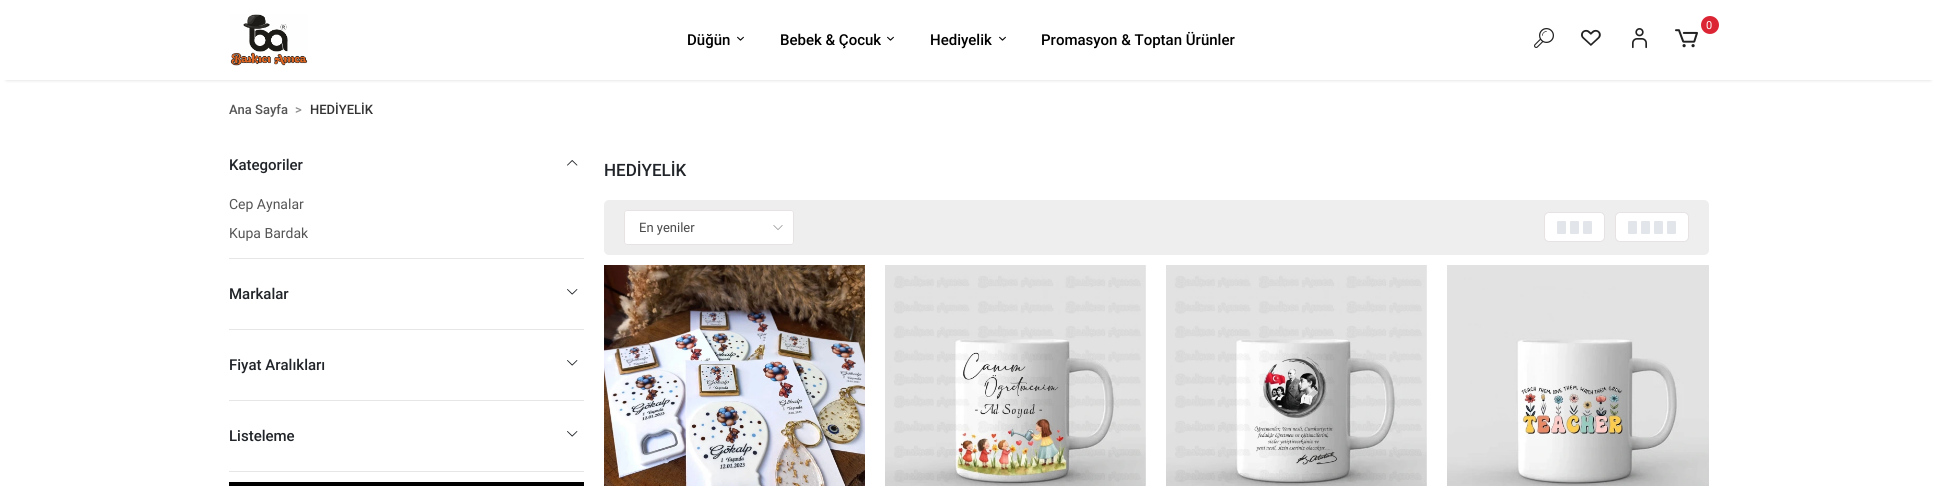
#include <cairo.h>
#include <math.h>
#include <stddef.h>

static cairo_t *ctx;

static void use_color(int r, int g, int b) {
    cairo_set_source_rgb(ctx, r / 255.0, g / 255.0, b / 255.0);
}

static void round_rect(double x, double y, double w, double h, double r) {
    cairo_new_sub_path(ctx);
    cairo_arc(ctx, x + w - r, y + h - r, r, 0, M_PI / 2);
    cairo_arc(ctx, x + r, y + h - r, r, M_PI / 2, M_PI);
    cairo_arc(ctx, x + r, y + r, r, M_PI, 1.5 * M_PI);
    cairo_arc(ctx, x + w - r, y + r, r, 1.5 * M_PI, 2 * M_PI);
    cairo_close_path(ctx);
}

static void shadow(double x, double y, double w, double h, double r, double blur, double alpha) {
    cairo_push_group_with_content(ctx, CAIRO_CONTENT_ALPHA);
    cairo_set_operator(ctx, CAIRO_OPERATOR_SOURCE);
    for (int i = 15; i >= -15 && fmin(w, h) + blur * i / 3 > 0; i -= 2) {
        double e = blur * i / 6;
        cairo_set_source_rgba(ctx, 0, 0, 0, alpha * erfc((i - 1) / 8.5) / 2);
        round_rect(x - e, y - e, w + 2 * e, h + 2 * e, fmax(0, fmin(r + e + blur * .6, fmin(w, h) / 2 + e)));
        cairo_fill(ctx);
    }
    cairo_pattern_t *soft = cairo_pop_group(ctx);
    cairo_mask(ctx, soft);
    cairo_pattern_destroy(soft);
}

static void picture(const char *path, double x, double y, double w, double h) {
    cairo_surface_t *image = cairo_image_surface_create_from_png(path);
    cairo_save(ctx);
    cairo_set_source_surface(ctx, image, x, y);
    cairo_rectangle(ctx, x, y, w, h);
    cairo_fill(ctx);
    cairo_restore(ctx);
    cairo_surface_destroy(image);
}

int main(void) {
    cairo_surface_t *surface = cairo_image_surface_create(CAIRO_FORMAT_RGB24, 1937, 486);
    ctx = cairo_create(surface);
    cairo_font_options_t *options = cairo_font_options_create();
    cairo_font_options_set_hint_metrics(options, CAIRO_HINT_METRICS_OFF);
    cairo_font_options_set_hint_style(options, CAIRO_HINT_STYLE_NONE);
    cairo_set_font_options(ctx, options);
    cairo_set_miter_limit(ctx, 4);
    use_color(255, 255, 255);
    cairo_paint(ctx);
    cairo_save(ctx);
    cairo_rectangle(ctx, 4, 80, 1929, 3);
    cairo_clip(ctx);
    use_color(152, 152, 152);
    shadow(7, 12, 1923, 66, 0, 2.5, 1);
    cairo_restore(ctx);
    picture("img1.png", 230, 14, 78, 52);
    use_color(219, 37, 52);
    cairo_arc(ctx, 1710, 25, 9, 0, 2 * M_PI);
    cairo_fill(ctx);
    cairo_select_font_face(ctx, "Roboto", CAIRO_FONT_SLANT_NORMAL, CAIRO_FONT_WEIGHT_NORMAL);
    cairo_set_font_size(ctx, 11);
    use_color(255, 255, 255);
    cairo_move_to(ctx, 1706, 29);
    cairo_show_text(ctx, "0");
    picture("img2.png", 1675, 29, 23, 19);
    picture("img3.png", 1534, 28, 20, 20);
    picture("img4.png", 1581, 29, 20, 17);
    picture("img5.png", 1632, 28, 15, 21);
    cairo_select_font_face(ctx, "Roboto Medium", CAIRO_FONT_SLANT_NORMAL, CAIRO_FONT_WEIGHT_NORMAL);
    cairo_set_font_size(ctx, 15);
    use_color(0, 0, 0);
    cairo_move_to(ctx, 687, 45);
    cairo_show_text(ctx, "Düğün");
    picture("img6.png", 737, 36, 7, 5);
    cairo_move_to(ctx, 780, 45);
    cairo_show_text(ctx, "Bebek & Çocuk");
    picture("img6.png", 887, 36, 7, 5);
    cairo_move_to(ctx, 930, 45);
    cairo_show_text(ctx, "Hediyelik");
    picture("img6.png", 999, 36, 7, 5);
    cairo_move_to(ctx, 1041, 45);
    cairo_show_text(ctx, "Promasyon & Toptan Ürünler");
    cairo_set_font_size(ctx, 13);
    use_color(85, 85, 85);
    cairo_move_to(ctx, 229, 114);
    cairo_show_text(ctx, "Ana Sayfa");
    use_color(142, 142, 142);
    cairo_move_to(ctx, 295, 114);
    cairo_show_text(ctx, ">");
    use_color(51, 51, 51);
    cairo_move_to(ctx, 310, 114);
    cairo_show_text(ctx, "HEDİYELİK");
    use_color(230, 230, 230);
    cairo_rectangle(ctx, 229, 258, 355, 1);
    cairo_fill(ctx);
    cairo_set_font_size(ctx, 15);
    use_color(33, 37, 41);
    cairo_move_to(ctx, 229, 170);
    cairo_show_text(ctx, "Kategoriler");
    picture("img7.png", 567, 160, 11, 6);
    cairo_select_font_face(ctx, "Roboto", CAIRO_FONT_SLANT_NORMAL, CAIRO_FONT_WEIGHT_NORMAL);
    cairo_set_font_size(ctx, 14);
    use_color(85, 85, 85);
    cairo_move_to(ctx, 229, 209);
    cairo_show_text(ctx, "Cep Aynalar");
    cairo_move_to(ctx, 229, 238);
    cairo_show_text(ctx, "Kupa Bardak");
    use_color(230, 230, 230);
    cairo_rectangle(ctx, 229, 329, 355, 1);
    cairo_fill(ctx);
    cairo_select_font_face(ctx, "Roboto Medium", CAIRO_FONT_SLANT_NORMAL, CAIRO_FONT_WEIGHT_NORMAL);
    cairo_set_font_size(ctx, 15);
    use_color(33, 37, 41);
    cairo_move_to(ctx, 229, 299);
    cairo_show_text(ctx, "Markalar");
    picture("img8.png", 567, 289, 11, 6);
    use_color(230, 230, 230);
    cairo_rectangle(ctx, 229, 400, 355, 1);
    cairo_fill(ctx);
    use_color(33, 37, 41);
    cairo_move_to(ctx, 229, 370);
    cairo_show_text(ctx, "Fiyat Aralıkları");
    picture("img8.png", 567, 360, 11, 6);
    use_color(230, 230, 230);
    cairo_rectangle(ctx, 229, 471, 355, 1);
    cairo_fill(ctx);
    use_color(33, 37, 41);
    cairo_move_to(ctx, 229, 441);
    cairo_show_text(ctx, "Listeleme");
    picture("img8.png", 567, 431, 11, 6);
    use_color(0, 0, 0);
    cairo_rectangle(ctx, 229, 482, 355, 4);
    cairo_fill(ctx);
    cairo_set_font_size(ctx, 17);
    use_color(33, 37, 41);
    cairo_move_to(ctx, 604, 176);
    cairo_show_text(ctx, "HEDİYELİK");
    use_color(238, 238, 238);
    round_rect(604, 200, 1105, 55, 5);
    cairo_fill(ctx);
    use_color(255, 255, 255);
    round_rect(624, 210, 170, 35, 3);
    cairo_fill(ctx);
    picture("img9.png", 773, 225, 10, 5);
    round_rect(624.5, 210.5, 169, 34, 2.5);
    use_color(231, 227, 227);
    cairo_set_line_width(ctx, 1);
    cairo_stroke(ctx);
    cairo_select_font_face(ctx, "Roboto", CAIRO_FONT_SLANT_NORMAL, CAIRO_FONT_WEIGHT_NORMAL);
    cairo_set_font_size(ctx, 13);
    use_color(74, 74, 74);
    cairo_move_to(ctx, 639, 232);
    cairo_show_text(ctx, "En yeniler");
    use_color(255, 255, 255);
    round_rect(1544.5, 212.5, 60, 29, 4.5);
    cairo_fill_preserve(ctx);
    use_color(231, 227, 227);
    cairo_stroke(ctx);
    use_color(226, 230, 235);
    round_rect(1557, 221, 9, 13, 1);
    cairo_fill(ctx);
    round_rect(1570, 221, 9, 13, 1);
    cairo_fill(ctx);
    round_rect(1583, 221, 9, 13, 1);
    cairo_fill(ctx);
    use_color(255, 255, 255);
    round_rect(1615.5, 212.5, 73, 29, 4.5);
    cairo_fill_preserve(ctx);
    use_color(231, 227, 227);
    cairo_stroke(ctx);
    use_color(226, 230, 235);
    round_rect(1628, 221, 9, 13, 1);
    cairo_fill(ctx);
    round_rect(1641, 221, 9, 13, 1);
    cairo_fill(ctx);
    round_rect(1654, 221, 9, 13, 1);
    cairo_fill(ctx);
    round_rect(1667, 221, 9, 13, 1);
    cairo_fill(ctx);
    picture("img10.png", 604, 265, 261, 221);
    picture("img11.png", 885, 265, 261, 221);
    picture("img12.png", 1166, 265, 261, 221);
    picture("img13.png", 1447, 265, 262, 221);
    cairo_surface_write_to_png(surface, "result.png");
    cairo_font_options_destroy(options);
    cairo_destroy(ctx);
    cairo_surface_destroy(surface);
    return 0;
}
